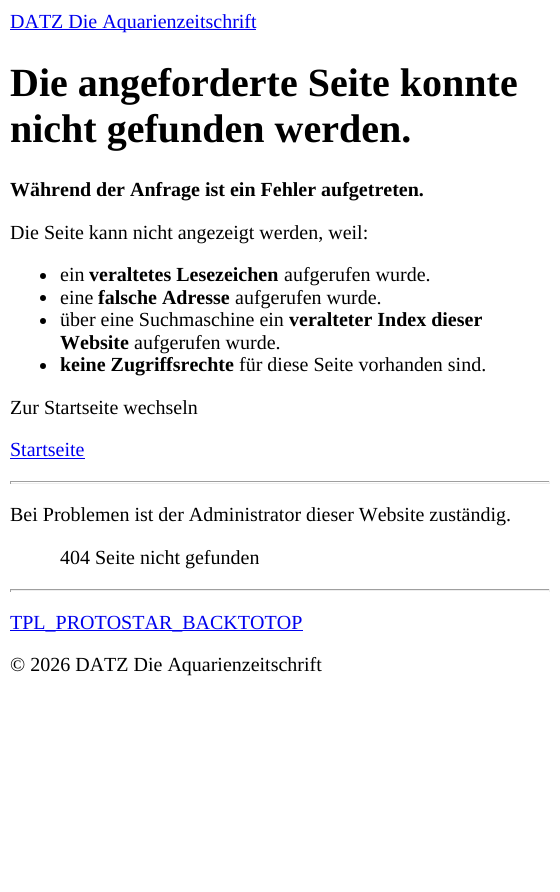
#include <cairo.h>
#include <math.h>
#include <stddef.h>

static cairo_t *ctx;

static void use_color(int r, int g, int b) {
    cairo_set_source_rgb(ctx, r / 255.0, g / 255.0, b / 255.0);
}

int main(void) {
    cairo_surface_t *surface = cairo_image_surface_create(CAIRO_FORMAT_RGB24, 560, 892);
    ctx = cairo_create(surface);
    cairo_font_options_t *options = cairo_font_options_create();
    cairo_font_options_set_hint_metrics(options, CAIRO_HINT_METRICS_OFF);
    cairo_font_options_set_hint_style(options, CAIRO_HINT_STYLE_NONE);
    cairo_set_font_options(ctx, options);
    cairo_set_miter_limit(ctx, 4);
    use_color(255, 255, 255);
    cairo_paint(ctx);
    use_color(0, 0, 238);
    cairo_rectangle(ctx, 10, 29, 246, 1);
    cairo_fill(ctx);
    cairo_select_font_face(ctx, "Liberation Serif", CAIRO_FONT_SLANT_NORMAL, CAIRO_FONT_WEIGHT_NORMAL);
    cairo_set_font_size(ctx, 20);
    cairo_move_to(ctx, 10, 28);
    cairo_show_text(ctx, "DATZ Die Aquarienzeitschrift");
    cairo_select_font_face(ctx, "Liberation Serif", CAIRO_FONT_SLANT_NORMAL, CAIRO_FONT_WEIGHT_BOLD);
    cairo_set_font_size(ctx, 40);
    use_color(0, 0, 0);
    cairo_move_to(ctx, 10, 96);
    cairo_show_text(ctx, "Die angeforderte Seite konnte");
    cairo_move_to(ctx, 10, 142);
    cairo_show_text(ctx, "nicht gefunden werden.");
    cairo_set_font_size(ctx, 20);
    cairo_move_to(ctx, 10, 196);
    cairo_show_text(ctx, "Während der Anfrage ist ein Fehler aufgetreten.");
    cairo_select_font_face(ctx, "Liberation Serif", CAIRO_FONT_SLANT_NORMAL, CAIRO_FONT_WEIGHT_NORMAL);
    cairo_move_to(ctx, 10, 239);
    cairo_show_text(ctx, "Die Seite kann nicht angezeigt werden, weil:");
    cairo_new_path(ctx);
    cairo_arc(ctx, 43, 276, 3, 0, 2 * M_PI);
    cairo_fill(ctx);
    cairo_move_to(ctx, 60, 281);
    cairo_show_text(ctx, "ein");
    cairo_select_font_face(ctx, "Liberation Serif", CAIRO_FONT_SLANT_NORMAL, CAIRO_FONT_WEIGHT_BOLD);
    cairo_move_to(ctx, 89, 281);
    cairo_show_text(ctx, "veraltetes Lesezeichen");
    cairo_select_font_face(ctx, "Liberation Serif", CAIRO_FONT_SLANT_NORMAL, CAIRO_FONT_WEIGHT_NORMAL);
    cairo_move_to(ctx, 284, 281);
    cairo_show_text(ctx, "aufgerufen wurde.");
    cairo_new_path(ctx);
    cairo_arc(ctx, 43, 298, 3, 0, 2 * M_PI);
    cairo_fill(ctx);
    cairo_move_to(ctx, 60, 304);
    cairo_show_text(ctx, "eine");
    cairo_select_font_face(ctx, "Liberation Serif", CAIRO_FONT_SLANT_NORMAL, CAIRO_FONT_WEIGHT_BOLD);
    cairo_move_to(ctx, 98, 304);
    cairo_show_text(ctx, "falsche Adresse");
    cairo_select_font_face(ctx, "Liberation Serif", CAIRO_FONT_SLANT_NORMAL, CAIRO_FONT_WEIGHT_NORMAL);
    cairo_move_to(ctx, 235, 304);
    cairo_show_text(ctx, "aufgerufen wurde.");
    cairo_new_path(ctx);
    cairo_arc(ctx, 43, 321, 3, 0, 2 * M_PI);
    cairo_fill(ctx);
    cairo_move_to(ctx, 60, 326);
    cairo_show_text(ctx, "über eine Suchmaschine ein");
    cairo_select_font_face(ctx, "Liberation Serif", CAIRO_FONT_SLANT_NORMAL, CAIRO_FONT_WEIGHT_BOLD);
    cairo_move_to(ctx, 289, 326);
    cairo_show_text(ctx, "veralteter Index dieser");
    cairo_move_to(ctx, 60, 349);
    cairo_show_text(ctx, "Website");
    cairo_select_font_face(ctx, "Liberation Serif", CAIRO_FONT_SLANT_NORMAL, CAIRO_FONT_WEIGHT_NORMAL);
    cairo_move_to(ctx, 134, 349);
    cairo_show_text(ctx, "aufgerufen wurde.");
    cairo_new_path(ctx);
    cairo_arc(ctx, 43, 366, 3, 0, 2 * M_PI);
    cairo_fill(ctx);
    cairo_select_font_face(ctx, "Liberation Serif", CAIRO_FONT_SLANT_NORMAL, CAIRO_FONT_WEIGHT_BOLD);
    cairo_move_to(ctx, 60, 371);
    cairo_show_text(ctx, "keine Zugriffsrechte");
    cairo_select_font_face(ctx, "Liberation Serif", CAIRO_FONT_SLANT_NORMAL, CAIRO_FONT_WEIGHT_NORMAL);
    cairo_move_to(ctx, 239, 371);
    cairo_show_text(ctx, "für diese Seite vorhanden sind.");
    cairo_move_to(ctx, 10, 414);
    cairo_show_text(ctx, "Zur Startseite wechseln");
    use_color(0, 0, 238);
    cairo_move_to(ctx, 10, 456);
    cairo_show_text(ctx, "Startseite");
    cairo_rectangle(ctx, 10, 458, 75, 1);
    cairo_fill(ctx);
    use_color(159, 159, 159);
    cairo_rectangle(ctx, 10, 481, 540, 1);
    cairo_fill(ctx);
    use_color(238, 238, 238);
    cairo_rectangle(ctx, 549, 481, 1, 3);
    cairo_fill(ctx);
    cairo_rectangle(ctx, 10, 483, 540, 1);
    cairo_fill(ctx);
    use_color(159, 159, 159);
    cairo_rectangle(ctx, 10, 481, 1, 3);
    cairo_fill(ctx);
    use_color(0, 0, 0);
    cairo_move_to(ctx, 10, 521);
    cairo_show_text(ctx, "Bei Problemen ist der Administrator dieser Website zuständig.");
    cairo_move_to(ctx, 60, 564);
    cairo_show_text(ctx, "404 Seite nicht gefunden");
    use_color(159, 159, 159);
    cairo_rectangle(ctx, 10, 589, 540, 1);
    cairo_fill(ctx);
    use_color(238, 238, 238);
    cairo_rectangle(ctx, 549, 589, 1, 3);
    cairo_fill(ctx);
    cairo_rectangle(ctx, 10, 590, 540, 1);
    cairo_fill(ctx);
    use_color(159, 159, 159);
    cairo_rectangle(ctx, 10, 589, 1, 3);
    cairo_fill(ctx);
    use_color(0, 0, 238);
    cairo_rectangle(ctx, 10, 630, 293, 1);
    cairo_fill(ctx);
    cairo_move_to(ctx, 10, 629);
    cairo_show_text(ctx, "TPL_PROTOSTAR_BACKTOTOP");
    use_color(0, 0, 0);
    cairo_move_to(ctx, 10, 671);
    cairo_show_text(ctx, "© 2026 DATZ Die Aquarienzeitschrift");
    cairo_surface_write_to_png(surface, "result.png");
    cairo_font_options_destroy(options);
    cairo_destroy(ctx);
    cairo_surface_destroy(surface);
    return 0;
}
